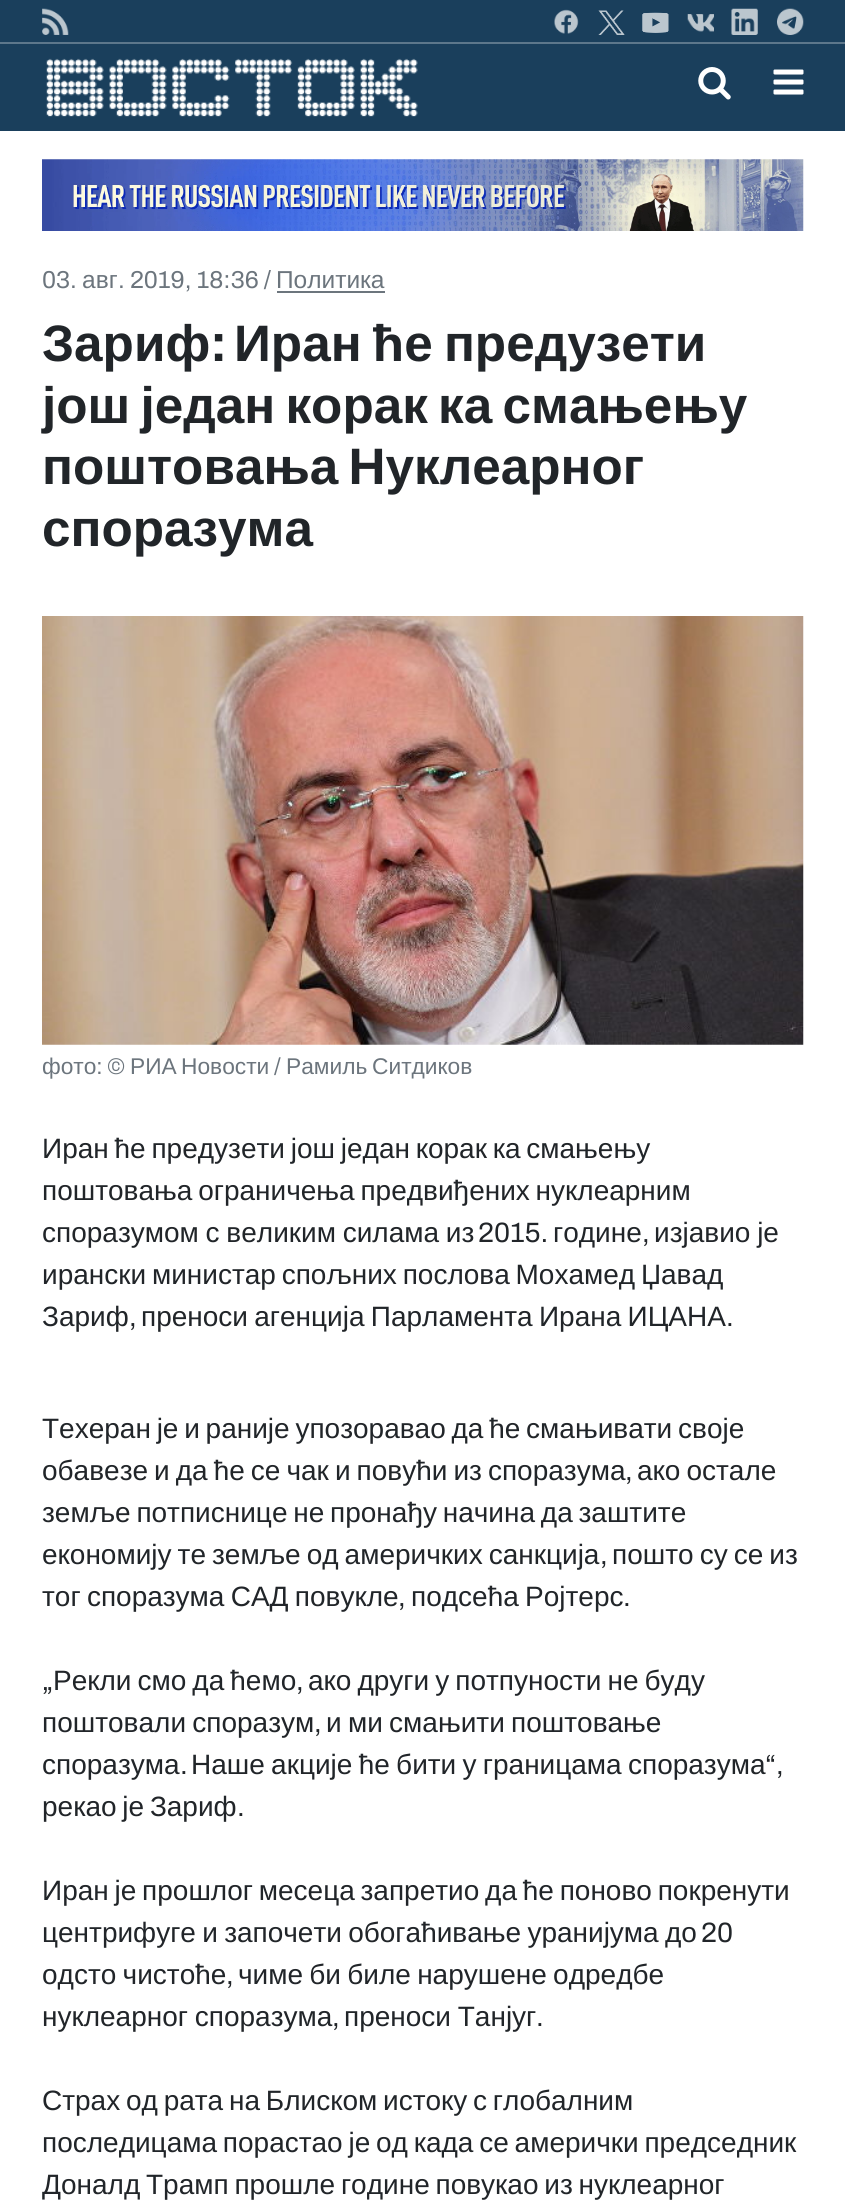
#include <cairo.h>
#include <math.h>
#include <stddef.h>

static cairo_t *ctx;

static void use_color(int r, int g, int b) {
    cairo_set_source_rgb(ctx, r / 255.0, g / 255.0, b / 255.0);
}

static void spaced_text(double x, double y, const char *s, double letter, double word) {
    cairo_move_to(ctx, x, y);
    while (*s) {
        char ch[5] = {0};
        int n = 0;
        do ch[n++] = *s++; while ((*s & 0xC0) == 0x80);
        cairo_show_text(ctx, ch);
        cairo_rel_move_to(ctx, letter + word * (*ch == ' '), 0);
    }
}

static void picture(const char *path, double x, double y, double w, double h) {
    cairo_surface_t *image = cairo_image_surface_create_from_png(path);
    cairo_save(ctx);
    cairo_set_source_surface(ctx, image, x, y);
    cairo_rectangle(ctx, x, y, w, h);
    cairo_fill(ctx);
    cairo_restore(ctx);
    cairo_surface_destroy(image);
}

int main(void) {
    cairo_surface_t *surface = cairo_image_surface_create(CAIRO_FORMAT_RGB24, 845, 2201);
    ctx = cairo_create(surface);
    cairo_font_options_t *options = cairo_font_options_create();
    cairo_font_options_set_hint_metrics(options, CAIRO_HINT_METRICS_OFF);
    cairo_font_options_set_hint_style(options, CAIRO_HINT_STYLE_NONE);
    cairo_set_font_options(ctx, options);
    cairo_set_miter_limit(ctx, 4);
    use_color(255, 255, 255);
    cairo_paint(ctx);
    use_color(26, 63, 92);
    cairo_rectangle(ctx, 0, 0, 845, 42);
    cairo_fill(ctx);
    use_color(93, 119, 139);
    cairo_rectangle(ctx, 0, 42, 845, 2);
    cairo_fill(ctx);
    picture("img1.png", 42, 8, 27, 27);
    picture("img2.png", 554, 9, 25, 25);
    picture("img3.png", 598, 10, 27, 25);
    picture("img4.png", 642, 12, 27, 21);
    picture("img5.png", 687, 14, 27, 18);
    picture("img6.png", 731, 8, 27, 27);
    picture("img7.png", 777, 8, 27, 27);
    use_color(26, 63, 92);
    cairo_rectangle(ctx, 0, 44, 845, 87);
    cairo_fill(ctx);
    picture("img8.png", 46, 58, 372, 59);
    picture("img9.png", 698, 67, 33, 33);
    picture("img10.png", 773, 69, 31, 26);
    picture("img11.png", 42, 159, 762, 72);
    cairo_select_font_face(ctx, "Archivo", CAIRO_FONT_SLANT_NORMAL, CAIRO_FONT_WEIGHT_NORMAL);
    cairo_set_font_size(ctx, 24.5);
    use_color(108, 117, 125);
    cairo_move_to(ctx, 42, 288);
    cairo_show_text(ctx, "03.");
    cairo_select_font_face(ctx, "Liberation Sans", CAIRO_FONT_SLANT_NORMAL, CAIRO_FONT_WEIGHT_NORMAL);
    cairo_move_to(ctx, 82, 288);
    cairo_show_text(ctx, "авг");
    cairo_select_font_face(ctx, "Archivo", CAIRO_FONT_SLANT_NORMAL, CAIRO_FONT_WEIGHT_NORMAL);
    cairo_move_to(ctx, 118, 288);
    cairo_show_text(ctx, ". 2019, 18:36 /");
    cairo_select_font_face(ctx, "Liberation Sans", CAIRO_FONT_SLANT_NORMAL, CAIRO_FONT_WEIGHT_NORMAL);
    cairo_move_to(ctx, 276, 288);
    cairo_show_text(ctx, "Политика");
    cairo_rectangle(ctx, 277, 291, 108, 2);
    cairo_fill(ctx);
    cairo_select_font_face(ctx, "Liberation Sans", CAIRO_FONT_SLANT_NORMAL, CAIRO_FONT_WEIGHT_BOLD);
    cairo_set_font_size(ctx, 51.25);
    use_color(33, 37, 41);
    cairo_move_to(ctx, 42, 361);
    cairo_show_text(ctx, "Зариф");
    cairo_select_font_face(ctx, "Archivo", CAIRO_FONT_SLANT_NORMAL, CAIRO_FONT_WEIGHT_BOLD);
    cairo_move_to(ctx, 210, 361);
    cairo_show_text(ctx, ":");
    cairo_select_font_face(ctx, "Liberation Sans", CAIRO_FONT_SLANT_NORMAL, CAIRO_FONT_WEIGHT_BOLD);
    spaced_text(234, 361, "Иран ће предузети", 0, -3);
    spaced_text(42, 423, "још један корак ка смањењу", 0, -4);
    spaced_text(42, 484, "поштовања Нуклеарног", 0, -4);
    cairo_move_to(ctx, 42, 546);
    cairo_show_text(ctx, "споразума");
    picture("img12.png", 42, 616, 762, 429);
    cairo_select_font_face(ctx, "Liberation Sans", CAIRO_FONT_SLANT_NORMAL, CAIRO_FONT_WEIGHT_NORMAL);
    cairo_set_font_size(ctx, 22.75);
    use_color(108, 117, 125);
    cairo_move_to(ctx, 42, 1074);
    cairo_show_text(ctx, "фото");
    cairo_select_font_face(ctx, "Archivo", CAIRO_FONT_SLANT_NORMAL, CAIRO_FONT_WEIGHT_NORMAL);
    cairo_move_to(ctx, 96, 1074);
    cairo_show_text(ctx, ": ©");
    cairo_select_font_face(ctx, "Liberation Sans", CAIRO_FONT_SLANT_NORMAL, CAIRO_FONT_WEIGHT_NORMAL);
    cairo_move_to(ctx, 130, 1074);
    cairo_show_text(ctx, "РИА");
    cairo_move_to(ctx, 181, 1074);
    cairo_show_text(ctx, "Новости");
    cairo_select_font_face(ctx, "Archivo", CAIRO_FONT_SLANT_NORMAL, CAIRO_FONT_WEIGHT_NORMAL);
    cairo_move_to(ctx, 274, 1074);
    cairo_show_text(ctx, "/");
    cairo_select_font_face(ctx, "Liberation Sans", CAIRO_FONT_SLANT_NORMAL, CAIRO_FONT_WEIGHT_NORMAL);
    cairo_move_to(ctx, 286, 1074);
    cairo_show_text(ctx, "Рамиль");
    cairo_move_to(ctx, 372, 1074);
    cairo_show_text(ctx, "Ситдиков");
    cairo_set_font_size(ctx, 28);
    use_color(33, 37, 41);
    spaced_text(42, 1158, "Иран ће предузети још један корак ка смањењу", 0, -2);
    spaced_text(42, 1200, "поштовања ограничења предвиђених нуклеарним", 0, -2);
    spaced_text(42, 1242, "споразумом с великим силама из", 0, -1);
    cairo_select_font_face(ctx, "Archivo", CAIRO_FONT_SLANT_NORMAL, CAIRO_FONT_WEIGHT_NORMAL);
    cairo_move_to(ctx, 478, 1242);
    cairo_show_text(ctx, "2015.");
    cairo_select_font_face(ctx, "Liberation Sans", CAIRO_FONT_SLANT_NORMAL, CAIRO_FONT_WEIGHT_NORMAL);
    cairo_move_to(ctx, 553, 1242);
    cairo_show_text(ctx, "године");
    cairo_select_font_face(ctx, "Archivo", CAIRO_FONT_SLANT_NORMAL, CAIRO_FONT_WEIGHT_NORMAL);
    cairo_move_to(ctx, 642, 1242);
    cairo_show_text(ctx, ",");
    cairo_select_font_face(ctx, "Liberation Sans", CAIRO_FONT_SLANT_NORMAL, CAIRO_FONT_WEIGHT_NORMAL);
    spaced_text(654, 1242, "изјавио је", 0, -1);
    spaced_text(42, 1284, "ирански министар спољних послова Мохамед Џавад", 0, -2);
    cairo_move_to(ctx, 42, 1326);
    cairo_show_text(ctx, "Зариф");
    cairo_select_font_face(ctx, "Archivo", CAIRO_FONT_SLANT_NORMAL, CAIRO_FONT_WEIGHT_NORMAL);
    cairo_move_to(ctx, 129, 1326);
    cairo_show_text(ctx, ",");
    cairo_select_font_face(ctx, "Liberation Sans", CAIRO_FONT_SLANT_NORMAL, CAIRO_FONT_WEIGHT_NORMAL);
    spaced_text(141, 1326, "преноси агенција Парламента Ирана ИЦАНА", 0, -1.5);
    cairo_select_font_face(ctx, "Archivo", CAIRO_FONT_SLANT_NORMAL, CAIRO_FONT_WEIGHT_NORMAL);
    cairo_move_to(ctx, 726, 1326);
    cairo_show_text(ctx, ".");
    cairo_select_font_face(ctx, "Liberation Sans", CAIRO_FONT_SLANT_NORMAL, CAIRO_FONT_WEIGHT_NORMAL);
    spaced_text(42, 1438, "Техеран је и раније упозоравао да ће смањивати своје", 0, -2);
    spaced_text(42, 1480, "обавезе и да ће се чак и повући из споразума", 0, -1.75);
    cairo_select_font_face(ctx, "Archivo", CAIRO_FONT_SLANT_NORMAL, CAIRO_FONT_WEIGHT_NORMAL);
    cairo_move_to(ctx, 625, 1480);
    cairo_show_text(ctx, ",");
    cairo_select_font_face(ctx, "Liberation Sans", CAIRO_FONT_SLANT_NORMAL, CAIRO_FONT_WEIGHT_NORMAL);
    spaced_text(637, 1480, "ако остале", 0, -1.75);
    spaced_text(42, 1522, "земље потписнице не пронађу начина да заштите", 0, -2);
    spaced_text(42, 1564, "економију те земље од америчких санкција", 0, -1.75);
    cairo_select_font_face(ctx, "Archivo", CAIRO_FONT_SLANT_NORMAL, CAIRO_FONT_WEIGHT_NORMAL);
    cairo_move_to(ctx, 600, 1564);
    cairo_show_text(ctx, ",");
    cairo_select_font_face(ctx, "Liberation Sans", CAIRO_FONT_SLANT_NORMAL, CAIRO_FONT_WEIGHT_NORMAL);
    spaced_text(612, 1564, "пошто су се из", 0, -1.75);
    spaced_text(42, 1606, "тог споразума САД повукле", 0, -1.5);
    cairo_select_font_face(ctx, "Archivo", CAIRO_FONT_SLANT_NORMAL, CAIRO_FONT_WEIGHT_NORMAL);
    cairo_move_to(ctx, 398, 1606);
    cairo_show_text(ctx, ",");
    cairo_select_font_face(ctx, "Liberation Sans", CAIRO_FONT_SLANT_NORMAL, CAIRO_FONT_WEIGHT_NORMAL);
    spaced_text(411, 1606, "подсећа Ројтерс", 0, -1.5);
    cairo_select_font_face(ctx, "Archivo", CAIRO_FONT_SLANT_NORMAL, CAIRO_FONT_WEIGHT_NORMAL);
    cairo_move_to(ctx, 623, 1606);
    cairo_show_text(ctx, ".");
    cairo_move_to(ctx, 42, 1690);
    cairo_show_text(ctx, "„");
    cairo_select_font_face(ctx, "Liberation Sans", CAIRO_FONT_SLANT_NORMAL, CAIRO_FONT_WEIGHT_NORMAL);
    spaced_text(53, 1690, "Рекли смо да ћемо", 0, -1.75);
    cairo_select_font_face(ctx, "Archivo", CAIRO_FONT_SLANT_NORMAL, CAIRO_FONT_WEIGHT_NORMAL);
    cairo_move_to(ctx, 296, 1690);
    cairo_show_text(ctx, ",");
    cairo_select_font_face(ctx, "Liberation Sans", CAIRO_FONT_SLANT_NORMAL, CAIRO_FONT_WEIGHT_NORMAL);
    spaced_text(308, 1690, "ако други у потпуности не буду", 0, -1.75);
    spaced_text(42, 1732, "поштовали споразум", 0, -1.5);
    cairo_select_font_face(ctx, "Archivo", CAIRO_FONT_SLANT_NORMAL, CAIRO_FONT_WEIGHT_NORMAL);
    cairo_move_to(ctx, 314, 1732);
    cairo_show_text(ctx, ",");
    cairo_select_font_face(ctx, "Liberation Sans", CAIRO_FONT_SLANT_NORMAL, CAIRO_FONT_WEIGHT_NORMAL);
    spaced_text(326, 1732, "и ми смањити поштовање", 0, -1.5);
    cairo_move_to(ctx, 42, 1774);
    cairo_show_text(ctx, "споразума");
    cairo_select_font_face(ctx, "Archivo", CAIRO_FONT_SLANT_NORMAL, CAIRO_FONT_WEIGHT_NORMAL);
    cairo_move_to(ctx, 180, 1774);
    cairo_show_text(ctx, ".");
    cairo_select_font_face(ctx, "Liberation Sans", CAIRO_FONT_SLANT_NORMAL, CAIRO_FONT_WEIGHT_NORMAL);
    spaced_text(191, 1774, "Наше акције ће бити у границама споразума", 0, -1.5);
    cairo_select_font_face(ctx, "Archivo", CAIRO_FONT_SLANT_NORMAL, CAIRO_FONT_WEIGHT_NORMAL);
    cairo_move_to(ctx, 765, 1774);
    cairo_show_text(ctx, "“,");
    cairo_select_font_face(ctx, "Liberation Sans", CAIRO_FONT_SLANT_NORMAL, CAIRO_FONT_WEIGHT_NORMAL);
    spaced_text(42, 1816, "рекао је Зариф", 0, -2);
    cairo_select_font_face(ctx, "Archivo", CAIRO_FONT_SLANT_NORMAL, CAIRO_FONT_WEIGHT_NORMAL);
    cairo_move_to(ctx, 237, 1816);
    cairo_show_text(ctx, ".");
    cairo_select_font_face(ctx, "Liberation Sans", CAIRO_FONT_SLANT_NORMAL, CAIRO_FONT_WEIGHT_NORMAL);
    spaced_text(42, 1900, "Иран је прошлог месеца запретио да ће поново покренути", 0, -2);
    spaced_text(42, 1942, "центрифуге и започети обогаћивање уранијума до", 0, -1.5);
    cairo_select_font_face(ctx, "Archivo", CAIRO_FONT_SLANT_NORMAL, CAIRO_FONT_WEIGHT_NORMAL);
    cairo_move_to(ctx, 701, 1942);
    cairo_show_text(ctx, "20");
    cairo_select_font_face(ctx, "Liberation Sans", CAIRO_FONT_SLANT_NORMAL, CAIRO_FONT_WEIGHT_NORMAL);
    spaced_text(42, 1984, "одсто чистоће", 0, -1.5);
    cairo_select_font_face(ctx, "Archivo", CAIRO_FONT_SLANT_NORMAL, CAIRO_FONT_WEIGHT_NORMAL);
    cairo_move_to(ctx, 226, 1984);
    cairo_show_text(ctx, ",");
    cairo_select_font_face(ctx, "Liberation Sans", CAIRO_FONT_SLANT_NORMAL, CAIRO_FONT_WEIGHT_NORMAL);
    spaced_text(238, 1984, "чиме би биле нарушене одредбе", 0, -1.5);
    spaced_text(42, 2026, "нуклеарног споразума", 0, -1);
    cairo_select_font_face(ctx, "Archivo", CAIRO_FONT_SLANT_NORMAL, CAIRO_FONT_WEIGHT_NORMAL);
    cairo_move_to(ctx, 332, 2026);
    cairo_show_text(ctx, ",");
    cairo_select_font_face(ctx, "Liberation Sans", CAIRO_FONT_SLANT_NORMAL, CAIRO_FONT_WEIGHT_NORMAL);
    spaced_text(344, 2026, "преноси Танјуг", 0, -1);
    cairo_select_font_face(ctx, "Archivo", CAIRO_FONT_SLANT_NORMAL, CAIRO_FONT_WEIGHT_NORMAL);
    cairo_move_to(ctx, 536, 2026);
    cairo_show_text(ctx, ".");
    cairo_select_font_face(ctx, "Liberation Sans", CAIRO_FONT_SLANT_NORMAL, CAIRO_FONT_WEIGHT_NORMAL);
    spaced_text(42, 2110, "Страх од рата на Блиском истоку с глобалним", 0, -2);
    spaced_text(42, 2152, "последицама порастао је од када се амерички председник", 0, -2);
    spaced_text(42, 2194, "Доналд Трамп прошле године повукао из нуклеарног", 0, -2);
    cairo_surface_write_to_png(surface, "result.png");
    cairo_font_options_destroy(options);
    cairo_destroy(ctx);
    cairo_surface_destroy(surface);
    return 0;
}
